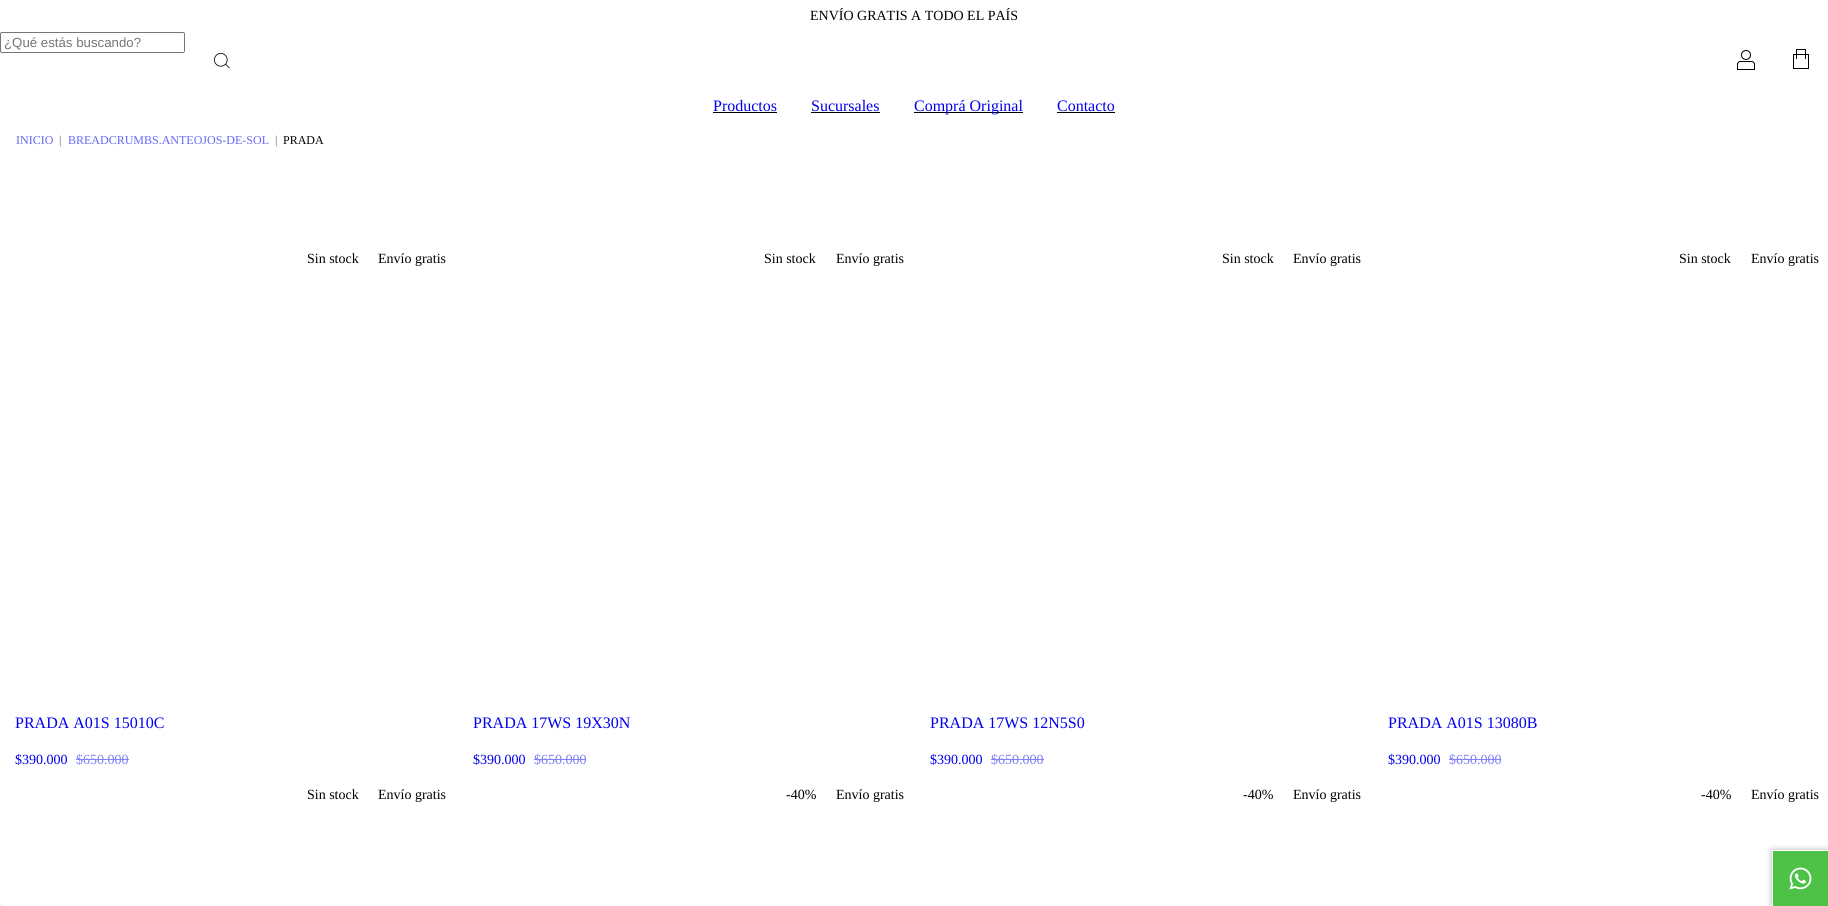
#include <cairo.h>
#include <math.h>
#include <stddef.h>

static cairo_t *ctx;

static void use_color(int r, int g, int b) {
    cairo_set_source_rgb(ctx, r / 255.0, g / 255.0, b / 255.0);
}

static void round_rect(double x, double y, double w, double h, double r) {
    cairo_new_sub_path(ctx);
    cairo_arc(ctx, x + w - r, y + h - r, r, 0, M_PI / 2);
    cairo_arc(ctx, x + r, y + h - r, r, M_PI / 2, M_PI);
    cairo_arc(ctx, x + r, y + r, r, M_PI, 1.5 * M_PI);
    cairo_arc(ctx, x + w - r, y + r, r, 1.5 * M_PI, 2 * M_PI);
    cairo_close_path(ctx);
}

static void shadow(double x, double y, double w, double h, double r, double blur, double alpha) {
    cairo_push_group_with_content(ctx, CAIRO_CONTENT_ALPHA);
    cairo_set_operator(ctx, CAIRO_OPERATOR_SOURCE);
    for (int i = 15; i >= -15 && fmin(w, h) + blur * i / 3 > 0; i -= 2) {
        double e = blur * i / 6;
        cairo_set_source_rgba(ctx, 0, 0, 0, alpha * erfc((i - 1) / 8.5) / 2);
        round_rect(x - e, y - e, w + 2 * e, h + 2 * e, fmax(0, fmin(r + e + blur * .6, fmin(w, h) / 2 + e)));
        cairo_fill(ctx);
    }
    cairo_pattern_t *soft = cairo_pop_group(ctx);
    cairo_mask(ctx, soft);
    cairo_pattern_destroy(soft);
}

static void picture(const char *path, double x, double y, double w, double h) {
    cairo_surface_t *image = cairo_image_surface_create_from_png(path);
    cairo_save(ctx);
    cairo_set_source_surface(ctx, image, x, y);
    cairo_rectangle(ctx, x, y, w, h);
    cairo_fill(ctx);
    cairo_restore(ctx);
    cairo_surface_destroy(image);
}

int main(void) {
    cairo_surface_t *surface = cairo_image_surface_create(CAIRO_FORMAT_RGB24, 1828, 906);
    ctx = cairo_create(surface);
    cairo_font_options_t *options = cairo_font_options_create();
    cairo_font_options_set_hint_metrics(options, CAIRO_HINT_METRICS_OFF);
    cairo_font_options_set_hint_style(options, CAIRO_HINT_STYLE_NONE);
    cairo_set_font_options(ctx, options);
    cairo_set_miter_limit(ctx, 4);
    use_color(255, 255, 255);
    cairo_paint(ctx);
    cairo_select_font_face(ctx, "Liberation Serif", CAIRO_FONT_SLANT_NORMAL, CAIRO_FONT_WEIGHT_NORMAL);
    cairo_set_font_size(ctx, 14);
    use_color(0, 0, 0);
    cairo_move_to(ctx, 810, 20);
    cairo_show_text(ctx, "ENVÍO GRATIS A TODO EL PAÍS");
    round_rect(0.5, 32.5, 184, 20, 1.5);
    use_color(118, 118, 118);
    cairo_set_line_width(ctx, 1);
    cairo_stroke(ctx);
    cairo_select_font_face(ctx, "Liberation Sans", CAIRO_FONT_SLANT_NORMAL, CAIRO_FONT_WEIGHT_NORMAL);
    cairo_set_font_size(ctx, 13.25);
    use_color(117, 117, 117);
    cairo_move_to(ctx, 4, 47);
    cairo_show_text(ctx, "¿Qué estás buscando?");
    picture("img1.png", 214, 53, 16, 16);
    picture("img2.png", 1737, 50, 18, 20);
    picture("img3.png", 1793, 49, 16, 20);
    cairo_select_font_face(ctx, "Liberation Serif", CAIRO_FONT_SLANT_NORMAL, CAIRO_FONT_WEIGHT_NORMAL);
    cairo_set_font_size(ctx, 16);
    use_color(0, 0, 238);
    cairo_move_to(ctx, 713, 111);
    cairo_show_text(ctx, "Productos");
    use_color(0, 0, 0);
    cairo_rectangle(ctx, 713, 112, 64, 1);
    cairo_fill(ctx);
    use_color(0, 0, 238);
    cairo_move_to(ctx, 811, 111);
    cairo_show_text(ctx, "Sucursales");
    use_color(0, 0, 0);
    cairo_rectangle(ctx, 811, 112, 69, 1);
    cairo_fill(ctx);
    cairo_rectangle(ctx, 914, 112, 109, 1);
    cairo_fill(ctx);
    use_color(0, 0, 238);
    cairo_move_to(ctx, 914, 111);
    cairo_show_text(ctx, "Comprá Original");
    cairo_move_to(ctx, 1057, 111);
    cairo_show_text(ctx, "Contacto");
    use_color(0, 0, 0);
    cairo_rectangle(ctx, 1057, 112, 58, 1);
    cairo_fill(ctx);
    cairo_set_font_size(ctx, 12);
    use_color(102, 102, 245);
    cairo_move_to(ctx, 16, 144);
    cairo_show_text(ctx, "INICIO");
    use_color(102, 102, 102);
    cairo_move_to(ctx, 59, 144);
    cairo_show_text(ctx, "|");
    use_color(102, 102, 245);
    cairo_move_to(ctx, 68, 144);
    cairo_show_text(ctx, "BREADCRUMBS.ANTEOJOS-DE-SOL");
    use_color(102, 102, 102);
    cairo_move_to(ctx, 275, 144);
    cairo_show_text(ctx, "|");
    use_color(0, 0, 0);
    cairo_move_to(ctx, 283, 144);
    cairo_show_text(ctx, "PRADA");
    cairo_set_font_size(ctx, 14);
    cairo_move_to(ctx, 307, 263);
    cairo_show_text(ctx, "Sin stock");
    cairo_move_to(ctx, 378, 263);
    cairo_show_text(ctx, "Envío gratis");
    cairo_set_font_size(ctx, 16);
    use_color(0, 0, 238);
    cairo_move_to(ctx, 15, 728);
    cairo_show_text(ctx, "PRADA A01S 15010C");
    cairo_set_font_size(ctx, 14);
    cairo_move_to(ctx, 15, 764);
    cairo_show_text(ctx, "$390.000");
    use_color(128, 128, 247);
    cairo_move_to(ctx, 76, 764);
    cairo_show_text(ctx, "$650.000");
    cairo_rectangle(ctx, 76, 759, 53, 1);
    cairo_fill(ctx);
    use_color(0, 0, 0);
    cairo_move_to(ctx, 764, 263);
    cairo_show_text(ctx, "Sin stock");
    cairo_move_to(ctx, 836, 263);
    cairo_show_text(ctx, "Envío gratis");
    cairo_set_font_size(ctx, 16);
    use_color(0, 0, 238);
    cairo_move_to(ctx, 473, 728);
    cairo_show_text(ctx, "PRADA 17WS 19X30N");
    cairo_set_font_size(ctx, 14);
    cairo_move_to(ctx, 473, 764);
    cairo_show_text(ctx, "$390.000");
    use_color(128, 128, 247);
    cairo_move_to(ctx, 534, 764);
    cairo_show_text(ctx, "$650.000");
    cairo_rectangle(ctx, 534, 759, 52, 1);
    cairo_fill(ctx);
    use_color(0, 0, 0);
    cairo_move_to(ctx, 1222, 263);
    cairo_show_text(ctx, "Sin stock");
    cairo_move_to(ctx, 1293, 263);
    cairo_show_text(ctx, "Envío gratis");
    cairo_set_font_size(ctx, 16);
    use_color(0, 0, 238);
    cairo_move_to(ctx, 930, 728);
    cairo_show_text(ctx, "PRADA 17WS 12N5S0");
    cairo_set_font_size(ctx, 14);
    cairo_move_to(ctx, 930, 764);
    cairo_show_text(ctx, "$390.000");
    use_color(128, 128, 247);
    cairo_move_to(ctx, 991, 764);
    cairo_show_text(ctx, "$650.000");
    cairo_rectangle(ctx, 991, 759, 53, 1);
    cairo_fill(ctx);
    use_color(0, 0, 0);
    cairo_move_to(ctx, 1679, 263);
    cairo_show_text(ctx, "Sin stock");
    cairo_move_to(ctx, 1751, 263);
    cairo_show_text(ctx, "Envío gratis");
    cairo_set_font_size(ctx, 16);
    use_color(0, 0, 238);
    cairo_move_to(ctx, 1388, 728);
    cairo_show_text(ctx, "PRADA A01S 13080B");
    cairo_set_font_size(ctx, 14);
    cairo_move_to(ctx, 1388, 764);
    cairo_show_text(ctx, "$390.000");
    use_color(128, 128, 247);
    cairo_move_to(ctx, 1449, 764);
    cairo_show_text(ctx, "$650.000");
    cairo_rectangle(ctx, 1449, 759, 52, 1);
    cairo_fill(ctx);
    use_color(0, 0, 0);
    cairo_move_to(ctx, 307, 799);
    cairo_show_text(ctx, "Sin stock");
    cairo_move_to(ctx, 378, 799);
    cairo_show_text(ctx, "Envío gratis");
    cairo_move_to(ctx, 786, 799);
    cairo_show_text(ctx, "-40%");
    cairo_move_to(ctx, 836, 799);
    cairo_show_text(ctx, "Envío gratis");
    cairo_move_to(ctx, 1243, 799);
    cairo_show_text(ctx, "-40%");
    cairo_move_to(ctx, 1293, 799);
    cairo_show_text(ctx, "Envío gratis");
    cairo_move_to(ctx, 1701, 799);
    cairo_show_text(ctx, "-40%");
    cairo_move_to(ctx, 1751, 799);
    cairo_show_text(ctx, "Envío gratis");
    use_color(245, 245, 245);
    cairo_rectangle(ctx, 0, 904, 2, 2);
    cairo_fill(ctx);
    use_color(0, 0, 0);
    shadow(1772, 850, 56, 56, 0, 3, 0.3);
    use_color(77, 194, 71);
    cairo_rectangle(ctx, 1773, 851, 55, 55);
    cairo_fill(ctx);
    use_color(255, 255, 255);
    cairo_rectangle(ctx, 1772, 850, 56, 1);
    cairo_fill(ctx);
    cairo_rectangle(ctx, 1772, 850, 1, 56);
    cairo_fill(ctx);
    picture("img4.png", 1789, 867, 23, 23);
    cairo_surface_write_to_png(surface, "result.png");
    cairo_font_options_destroy(options);
    cairo_destroy(ctx);
    cairo_surface_destroy(surface);
    return 0;
}
